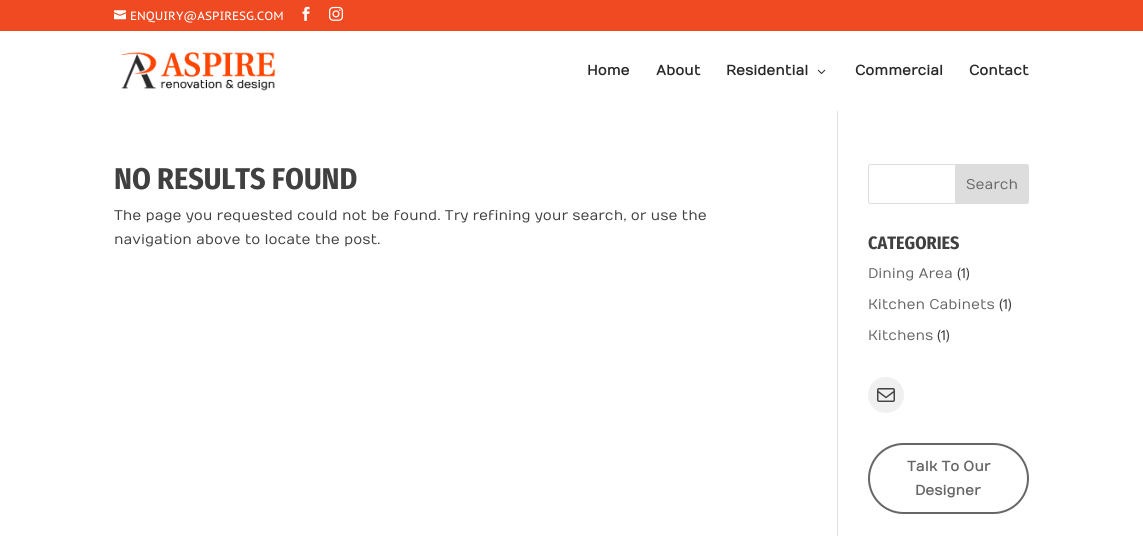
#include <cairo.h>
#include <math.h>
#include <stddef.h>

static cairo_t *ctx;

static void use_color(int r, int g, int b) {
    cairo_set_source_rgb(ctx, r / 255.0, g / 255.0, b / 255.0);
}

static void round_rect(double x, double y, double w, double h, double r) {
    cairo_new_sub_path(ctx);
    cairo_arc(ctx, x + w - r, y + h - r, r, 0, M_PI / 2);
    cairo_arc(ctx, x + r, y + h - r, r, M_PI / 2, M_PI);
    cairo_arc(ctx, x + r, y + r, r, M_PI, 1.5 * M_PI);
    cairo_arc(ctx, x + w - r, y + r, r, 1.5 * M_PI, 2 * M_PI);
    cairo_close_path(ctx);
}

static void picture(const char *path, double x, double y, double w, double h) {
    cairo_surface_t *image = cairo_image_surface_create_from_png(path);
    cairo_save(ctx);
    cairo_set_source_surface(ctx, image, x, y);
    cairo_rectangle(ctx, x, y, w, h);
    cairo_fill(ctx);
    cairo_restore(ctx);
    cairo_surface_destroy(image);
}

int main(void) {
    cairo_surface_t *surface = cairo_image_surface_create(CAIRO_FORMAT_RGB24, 1143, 536);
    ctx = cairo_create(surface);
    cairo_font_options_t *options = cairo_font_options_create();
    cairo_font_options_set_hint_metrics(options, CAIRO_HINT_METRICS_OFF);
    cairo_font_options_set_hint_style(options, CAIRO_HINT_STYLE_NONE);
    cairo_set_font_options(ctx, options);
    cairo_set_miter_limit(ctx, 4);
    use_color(255, 255, 255);
    cairo_paint(ctx);
    use_color(239, 74, 34);
    cairo_rectangle(ctx, 0, 0, 1143, 31);
    cairo_fill(ctx);
    picture("img1.png", 114, 10, 12, 10);
    cairo_select_font_face(ctx, "PT Sans Caption", CAIRO_FONT_SLANT_NORMAL, CAIRO_FONT_WEIGHT_NORMAL);
    cairo_set_font_size(ctx, 12);
    use_color(255, 255, 255);
    cairo_move_to(ctx, 130, 20);
    cairo_show_text(ctx, "ENQUIRY@ASPIRESG.COM");
    picture("img2.png", 302, 6, 8, 15);
    picture("img3.png", 329, 6, 14, 15);
    use_color(226, 226, 226);
    cairo_rectangle(ctx, 837, 106, 1, 430);
    cairo_fill(ctx);
    use_color(255, 255, 255);
    cairo_rectangle(ctx, 837, 106, 1, 5);
    cairo_fill(ctx);
    picture("img4.png", 120, 51, 156, 40);
    cairo_select_font_face(ctx, "Numans", CAIRO_FONT_SLANT_NORMAL, CAIRO_FONT_WEIGHT_BOLD);
    cairo_set_font_size(ctx, 14);
    use_color(40, 40, 40);
    cairo_move_to(ctx, 587, 75);
    cairo_show_text(ctx, "Home");
    cairo_move_to(ctx, 656, 75);
    cairo_show_text(ctx, "About");
    cairo_move_to(ctx, 726, 75);
    cairo_show_text(ctx, "Residential");
    picture("img5.png", 817, 69, 9, 5);
    cairo_move_to(ctx, 855, 75);
    cairo_show_text(ctx, "Commercial");
    cairo_move_to(ctx, 969, 75);
    cairo_show_text(ctx, "Contact");
    cairo_select_font_face(ctx, "Fira Sans Condensed", CAIRO_FONT_SLANT_NORMAL, CAIRO_FONT_WEIGHT_BOLD);
    cairo_set_font_size(ctx, 30);
    use_color(64, 64, 65);
    cairo_move_to(ctx, 114, 189);
    cairo_show_text(ctx, "NO RESULTS FOUND");
    cairo_select_font_face(ctx, "Numans", CAIRO_FONT_SLANT_NORMAL, CAIRO_FONT_WEIGHT_NORMAL);
    cairo_set_font_size(ctx, 14);
    cairo_move_to(ctx, 114, 220);
    cairo_show_text(ctx, "The page you requested could not be found. Try refining your search, or use the");
    cairo_move_to(ctx, 114, 244);
    cairo_show_text(ctx, "navigation above to locate the post.");
    round_rect(868.5, 164.5, 160, 39, 2.5);
    use_color(221, 221, 221);
    cairo_set_line_width(ctx, 1);
    cairo_stroke(ctx);
    cairo_new_path(ctx);
    cairo_move_to(ctx, 955.5, 164.5);
    cairo_line_to(ctx, 1026, 164.5);
    cairo_curve_to(ctx, 1027.5, 164.5, 1028.5, 165.5, 1028.5, 167);
    cairo_line_to(ctx, 1028.5, 201);
    cairo_curve_to(ctx, 1028.5, 202.5, 1027.5, 203.5, 1026, 203.5);
    cairo_line_to(ctx, 955.5, 203.5);
    cairo_close_path(ctx);
    cairo_fill_preserve(ctx);
    cairo_stroke(ctx);
    use_color(102, 102, 102);
    cairo_move_to(ctx, 966, 189);
    cairo_show_text(ctx, "Search");
    cairo_select_font_face(ctx, "Fira Sans Condensed", CAIRO_FONT_SLANT_NORMAL, CAIRO_FONT_WEIGHT_BOLD);
    cairo_set_font_size(ctx, 18);
    use_color(64, 64, 65);
    cairo_move_to(ctx, 868, 249);
    cairo_show_text(ctx, "CATEGORIES");
    cairo_select_font_face(ctx, "Numans", CAIRO_FONT_SLANT_NORMAL, CAIRO_FONT_WEIGHT_NORMAL);
    cairo_set_font_size(ctx, 14);
    use_color(102, 102, 102);
    cairo_move_to(ctx, 868, 278);
    cairo_show_text(ctx, "Dining Area");
    use_color(64, 64, 65);
    cairo_move_to(ctx, 957, 278);
    cairo_show_text(ctx, "(1)");
    use_color(102, 102, 102);
    cairo_move_to(ctx, 868, 309);
    cairo_show_text(ctx, "Kitchen Cabinets");
    use_color(64, 64, 65);
    cairo_move_to(ctx, 999, 309);
    cairo_show_text(ctx, "(1)");
    use_color(102, 102, 102);
    cairo_move_to(ctx, 868, 340);
    cairo_show_text(ctx, "Kitchens");
    use_color(64, 64, 65);
    cairo_move_to(ctx, 937, 340);
    cairo_show_text(ctx, "(1)");
    use_color(240, 240, 240);
    cairo_new_path(ctx);
    cairo_arc(ctx, 886, 395, 18, 0, 2 * M_PI);
    cairo_fill(ctx);
    picture("img6.png", 877, 388, 18, 14);
    round_rect(869, 444, 159, 69, 34.5);
    use_color(102, 102, 102);
    cairo_set_line_width(ctx, 2);
    cairo_stroke(ctx);
    cairo_select_font_face(ctx, "Numans", CAIRO_FONT_SLANT_NORMAL, CAIRO_FONT_WEIGHT_BOLD);
    cairo_move_to(ctx, 907, 471);
    cairo_show_text(ctx, "Talk To Our");
    cairo_move_to(ctx, 915, 495);
    cairo_show_text(ctx, "Designer");
    cairo_surface_write_to_png(surface, "result.png");
    cairo_font_options_destroy(options);
    cairo_destroy(ctx);
    cairo_surface_destroy(surface);
    return 0;
}
